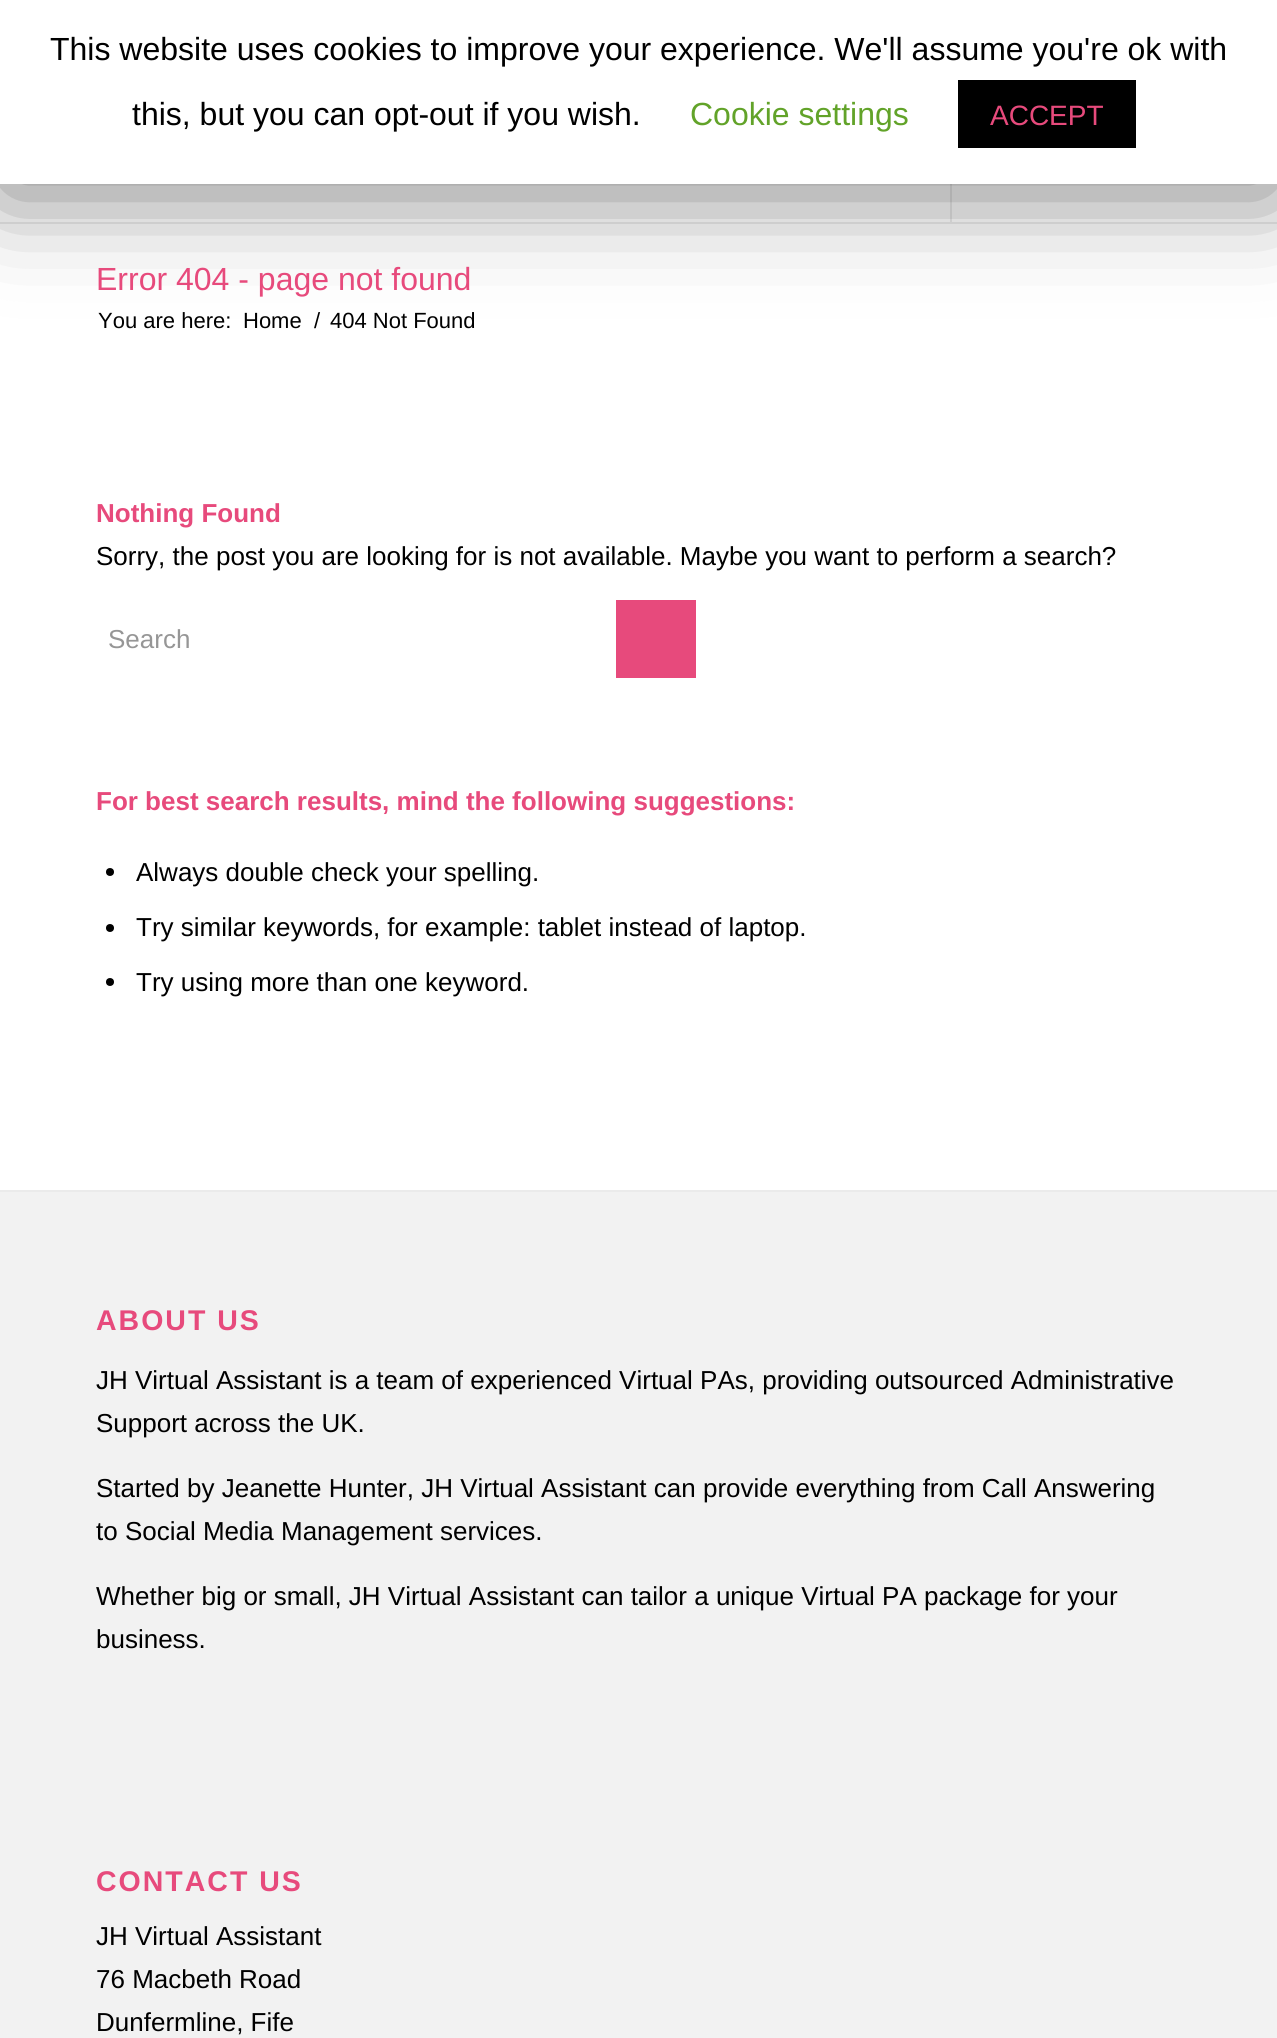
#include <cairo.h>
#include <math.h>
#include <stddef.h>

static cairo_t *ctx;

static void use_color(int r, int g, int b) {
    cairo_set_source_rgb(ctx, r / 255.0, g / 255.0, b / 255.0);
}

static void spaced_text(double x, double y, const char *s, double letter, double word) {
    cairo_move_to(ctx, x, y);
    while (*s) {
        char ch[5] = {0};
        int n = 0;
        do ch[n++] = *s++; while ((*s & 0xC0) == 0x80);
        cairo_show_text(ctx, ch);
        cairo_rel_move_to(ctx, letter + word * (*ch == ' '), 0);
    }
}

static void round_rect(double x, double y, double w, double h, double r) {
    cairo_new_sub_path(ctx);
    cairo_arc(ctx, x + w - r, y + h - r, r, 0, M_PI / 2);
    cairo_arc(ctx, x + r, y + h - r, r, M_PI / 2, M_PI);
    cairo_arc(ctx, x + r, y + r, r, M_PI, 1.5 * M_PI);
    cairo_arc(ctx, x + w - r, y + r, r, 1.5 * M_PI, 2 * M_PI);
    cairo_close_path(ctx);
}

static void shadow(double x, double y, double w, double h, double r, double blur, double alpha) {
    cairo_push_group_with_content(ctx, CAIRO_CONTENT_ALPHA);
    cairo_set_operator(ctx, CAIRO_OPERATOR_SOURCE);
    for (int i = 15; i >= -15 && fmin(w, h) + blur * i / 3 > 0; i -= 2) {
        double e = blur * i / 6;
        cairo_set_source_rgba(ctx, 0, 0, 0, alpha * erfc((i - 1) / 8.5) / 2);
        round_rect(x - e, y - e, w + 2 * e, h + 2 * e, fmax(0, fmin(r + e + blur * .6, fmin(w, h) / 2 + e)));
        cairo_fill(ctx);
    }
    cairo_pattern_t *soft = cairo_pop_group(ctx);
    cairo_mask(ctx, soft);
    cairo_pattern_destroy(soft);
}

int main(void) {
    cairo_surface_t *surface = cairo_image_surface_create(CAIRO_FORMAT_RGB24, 1277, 2038);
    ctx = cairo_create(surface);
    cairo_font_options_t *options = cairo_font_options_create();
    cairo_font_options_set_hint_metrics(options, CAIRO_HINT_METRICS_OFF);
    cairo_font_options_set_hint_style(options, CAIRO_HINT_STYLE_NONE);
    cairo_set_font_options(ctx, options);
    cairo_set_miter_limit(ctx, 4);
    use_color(255, 255, 255);
    cairo_paint(ctx);
    use_color(235, 235, 235);
    cairo_rectangle(ctx, 0, 222, 1277, 2);
    cairo_fill(ctx);
    cairo_rectangle(ctx, 950, 184, 2, 38);
    cairo_fill(ctx);
    use_color(0, 0, 0);
    shadow(0, 10, 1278, 184, 0, 50, 0.5);
    use_color(255, 255, 255);
    cairo_rectangle(ctx, 0, 0, 1277, 184);
    cairo_fill(ctx);
    cairo_select_font_face(ctx, "Liberation Sans", CAIRO_FONT_SLANT_NORMAL, CAIRO_FONT_WEIGHT_NORMAL);
    cairo_set_font_size(ctx, 32);
    use_color(0, 0, 0);
    cairo_move_to(ctx, 50, 60);
    cairo_show_text(ctx, "This website uses cookies to improve your experience. We'll assume you're ok with");
    cairo_move_to(ctx, 132, 125);
    cairo_show_text(ctx, "this, but you can opt-out if you wish.");
    use_color(98, 163, 41);
    cairo_move_to(ctx, 690, 125);
    cairo_show_text(ctx, "Cookie settings");
    use_color(0, 0, 0);
    cairo_rectangle(ctx, 958, 80, 178, 68);
    cairo_fill(ctx);
    cairo_set_font_size(ctx, 28);
    use_color(231, 74, 124);
    cairo_move_to(ctx, 990, 125);
    cairo_show_text(ctx, "ACCEPT");
    cairo_set_font_size(ctx, 32);
    cairo_move_to(ctx, 96, 290);
    cairo_show_text(ctx, "Error 404 - page not found");
    cairo_set_font_size(ctx, 22);
    use_color(0, 0, 0);
    cairo_move_to(ctx, 98, 328);
    cairo_show_text(ctx, "You are here:");
    cairo_move_to(ctx, 243, 328);
    cairo_show_text(ctx, "Home");
    cairo_move_to(ctx, 314, 328);
    cairo_show_text(ctx, "/");
    cairo_move_to(ctx, 330, 328);
    cairo_show_text(ctx, "404 Not Found");
    cairo_select_font_face(ctx, "Liberation Sans", CAIRO_FONT_SLANT_NORMAL, CAIRO_FONT_WEIGHT_BOLD);
    cairo_set_font_size(ctx, 26);
    use_color(231, 74, 124);
    cairo_move_to(ctx, 96, 522);
    cairo_show_text(ctx, "Nothing Found");
    cairo_select_font_face(ctx, "Liberation Sans", CAIRO_FONT_SLANT_NORMAL, CAIRO_FONT_WEIGHT_NORMAL);
    use_color(0, 0, 0);
    cairo_move_to(ctx, 96, 565);
    cairo_show_text(ctx, "Sorry, the post you are looking for is not available. Maybe you want to perform a search?");
    use_color(150, 150, 150);
    cairo_move_to(ctx, 108, 648);
    cairo_show_text(ctx, "Search");
    use_color(231, 74, 124);
    cairo_rectangle(ctx, 616, 600, 80, 78);
    cairo_fill(ctx);
    cairo_select_font_face(ctx, "Liberation Sans", CAIRO_FONT_SLANT_NORMAL, CAIRO_FONT_WEIGHT_BOLD);
    cairo_move_to(ctx, 96, 810);
    cairo_show_text(ctx, "For best search results, mind the following suggestions:");
    use_color(0, 0, 0);
    cairo_new_path(ctx);
    cairo_arc(ctx, 110, 872, 4, 0, 2 * M_PI);
    cairo_fill(ctx);
    cairo_select_font_face(ctx, "Liberation Sans", CAIRO_FONT_SLANT_NORMAL, CAIRO_FONT_WEIGHT_NORMAL);
    cairo_move_to(ctx, 136, 881);
    cairo_show_text(ctx, "Always double check your spelling.");
    cairo_new_path(ctx);
    cairo_arc(ctx, 110, 928, 4, 0, 2 * M_PI);
    cairo_fill(ctx);
    cairo_move_to(ctx, 136, 936);
    cairo_show_text(ctx, "Try similar keywords, for example: tablet instead of laptop.");
    cairo_new_path(ctx);
    cairo_arc(ctx, 110, 982, 4, 0, 2 * M_PI);
    cairo_fill(ctx);
    cairo_move_to(ctx, 136, 991);
    cairo_show_text(ctx, "Try using more than one keyword.");
    use_color(242, 242, 242);
    cairo_rectangle(ctx, 0, 1192, 1277, 846);
    cairo_fill(ctx);
    use_color(235, 235, 235);
    cairo_rectangle(ctx, 0, 1190, 1277, 2);
    cairo_fill(ctx);
    cairo_select_font_face(ctx, "Liberation Sans", CAIRO_FONT_SLANT_NORMAL, CAIRO_FONT_WEIGHT_BOLD);
    cairo_set_font_size(ctx, 28.5);
    use_color(231, 74, 124);
    spaced_text(96, 1330, "ABOUT US", 2, 0);
    cairo_select_font_face(ctx, "Liberation Sans", CAIRO_FONT_SLANT_NORMAL, CAIRO_FONT_WEIGHT_NORMAL);
    cairo_set_font_size(ctx, 26);
    use_color(0, 0, 0);
    cairo_move_to(ctx, 96, 1389);
    cairo_show_text(ctx, "JH Virtual Assistant is a team of experienced Virtual PAs, providing outsourced Administrative");
    cairo_move_to(ctx, 96, 1432);
    cairo_show_text(ctx, "Support across the UK.");
    cairo_move_to(ctx, 96, 1497);
    cairo_show_text(ctx, "Started by Jeanette Hunter, JH Virtual Assistant can provide everything from Call Answering");
    cairo_move_to(ctx, 96, 1540);
    cairo_show_text(ctx, "to Social Media Management services.");
    cairo_move_to(ctx, 96, 1605);
    cairo_show_text(ctx, "Whether big or small, JH Virtual Assistant can tailor a unique Virtual PA package for your");
    cairo_move_to(ctx, 96, 1648);
    cairo_show_text(ctx, "business.");
    cairo_select_font_face(ctx, "Liberation Sans", CAIRO_FONT_SLANT_NORMAL, CAIRO_FONT_WEIGHT_BOLD);
    cairo_set_font_size(ctx, 28.5);
    use_color(231, 74, 124);
    spaced_text(96, 1891, "CONTACT US", 2, 0);
    cairo_select_font_face(ctx, "Liberation Sans", CAIRO_FONT_SLANT_NORMAL, CAIRO_FONT_WEIGHT_NORMAL);
    cairo_set_font_size(ctx, 26);
    use_color(0, 0, 0);
    cairo_move_to(ctx, 96, 1945);
    cairo_show_text(ctx, "JH Virtual Assistant");
    cairo_move_to(ctx, 96, 1988);
    cairo_show_text(ctx, "76 Macbeth Road");
    cairo_move_to(ctx, 96, 2031);
    cairo_show_text(ctx, "Dunfermline, Fife");
    cairo_surface_write_to_png(surface, "result.png");
    cairo_font_options_destroy(options);
    cairo_destroy(ctx);
    cairo_surface_destroy(surface);
    return 0;
}
